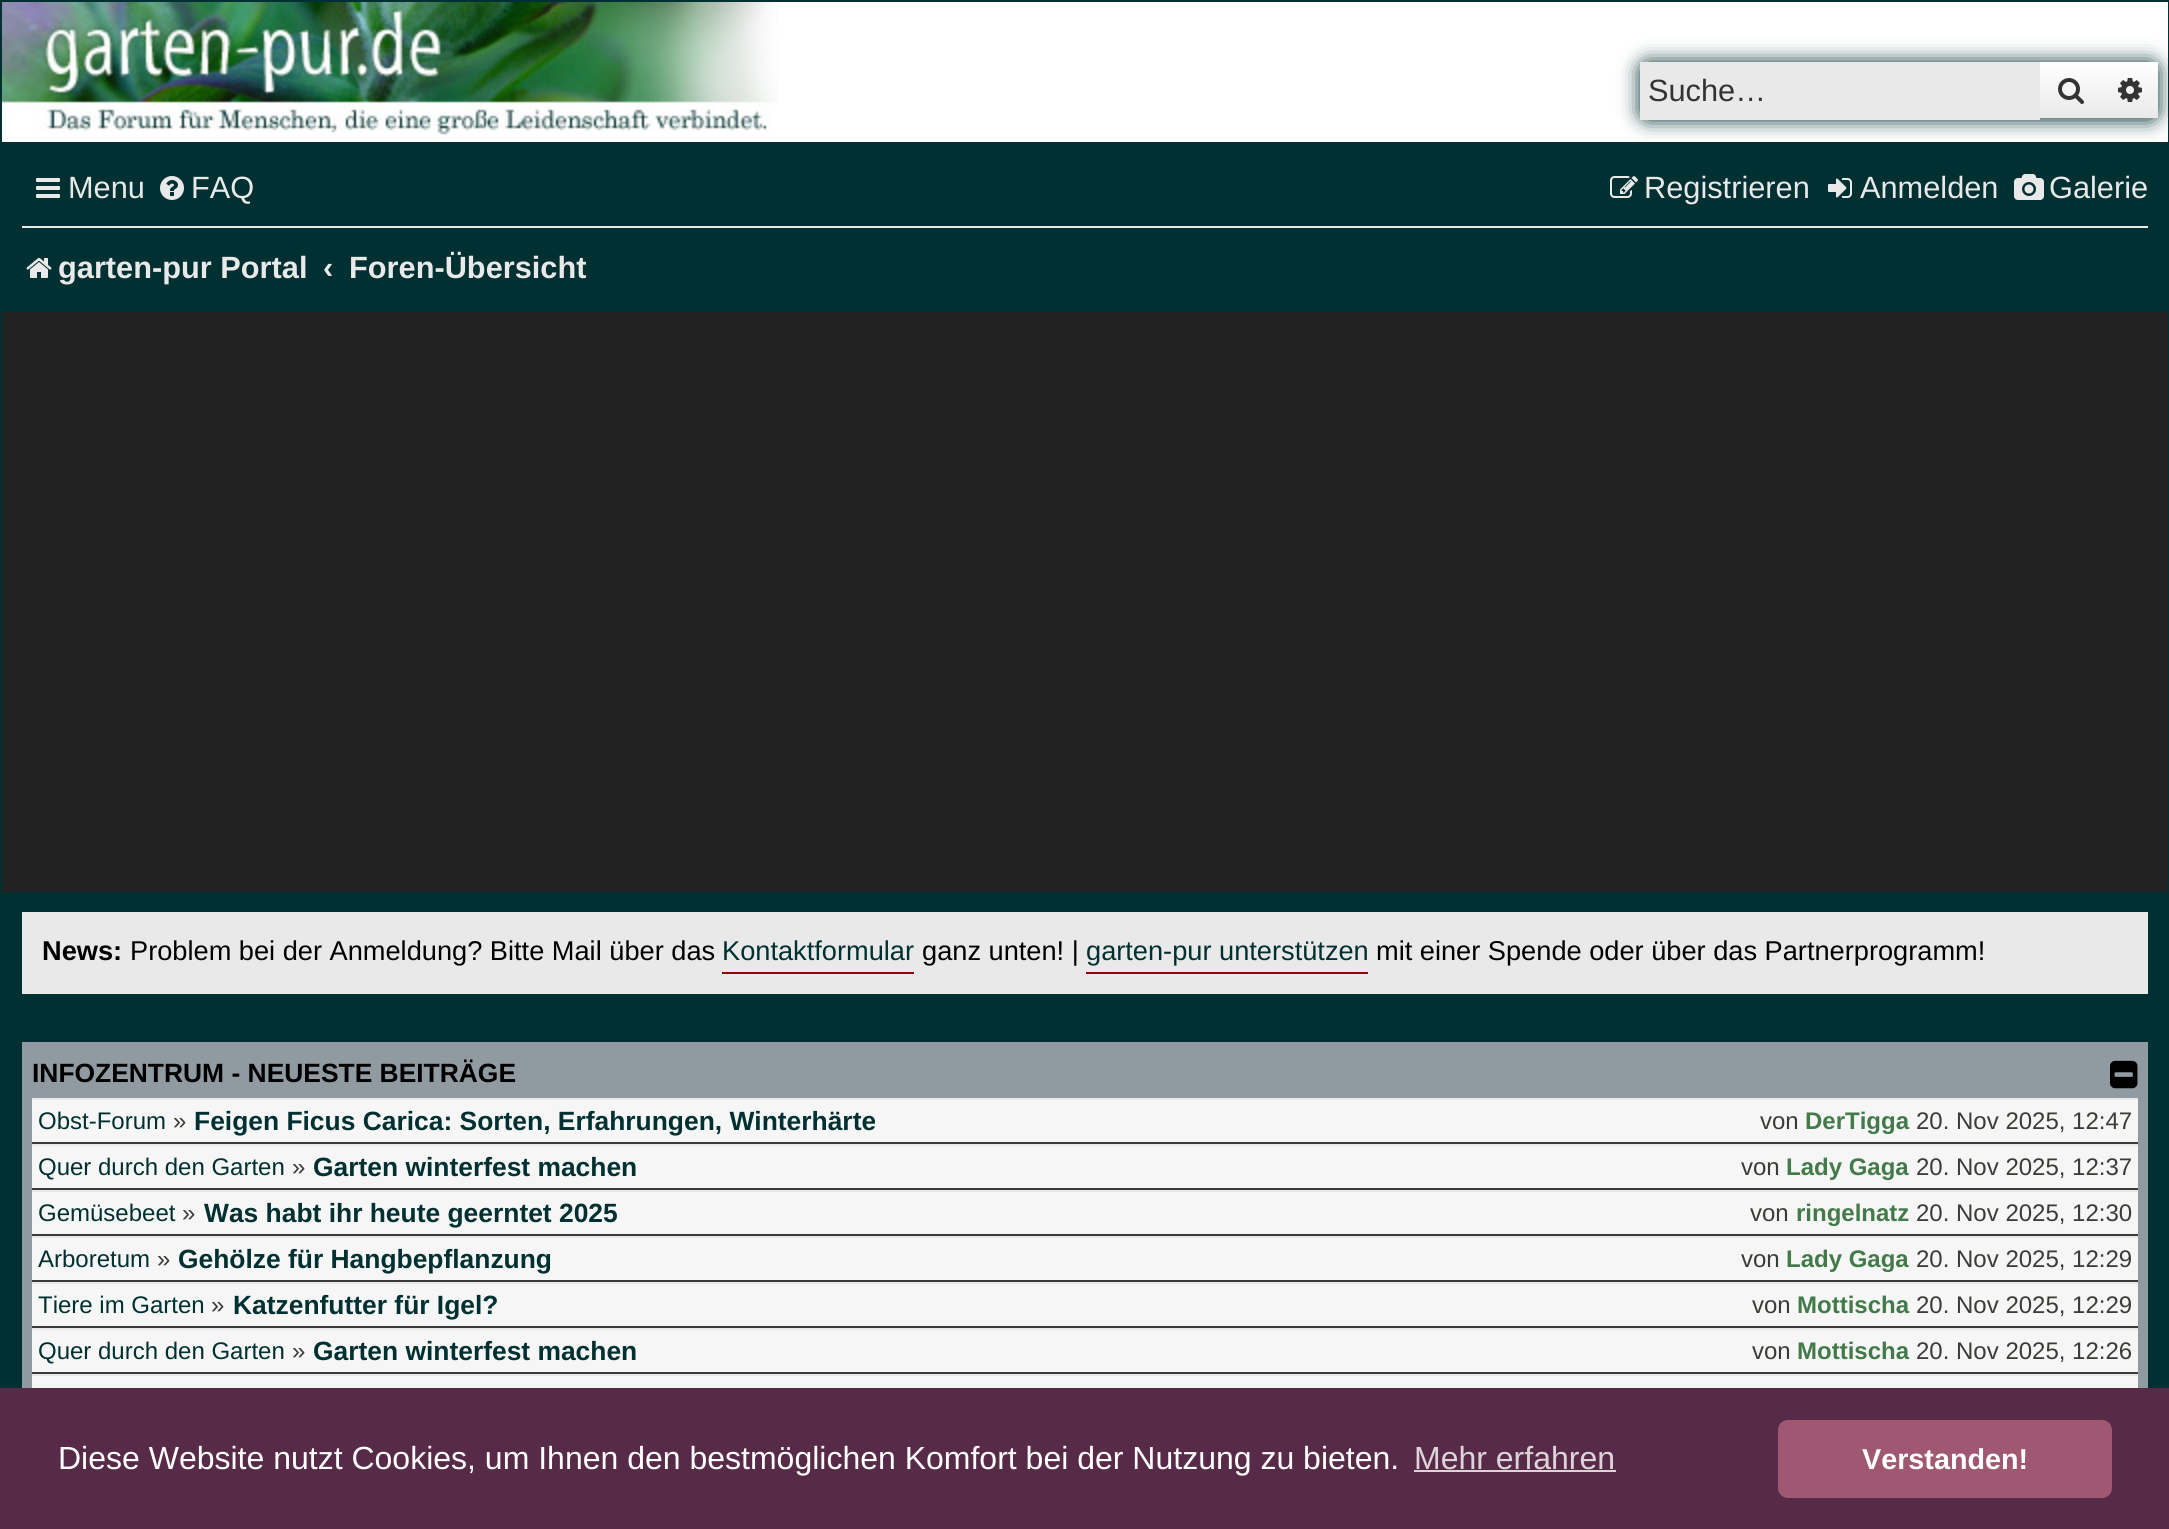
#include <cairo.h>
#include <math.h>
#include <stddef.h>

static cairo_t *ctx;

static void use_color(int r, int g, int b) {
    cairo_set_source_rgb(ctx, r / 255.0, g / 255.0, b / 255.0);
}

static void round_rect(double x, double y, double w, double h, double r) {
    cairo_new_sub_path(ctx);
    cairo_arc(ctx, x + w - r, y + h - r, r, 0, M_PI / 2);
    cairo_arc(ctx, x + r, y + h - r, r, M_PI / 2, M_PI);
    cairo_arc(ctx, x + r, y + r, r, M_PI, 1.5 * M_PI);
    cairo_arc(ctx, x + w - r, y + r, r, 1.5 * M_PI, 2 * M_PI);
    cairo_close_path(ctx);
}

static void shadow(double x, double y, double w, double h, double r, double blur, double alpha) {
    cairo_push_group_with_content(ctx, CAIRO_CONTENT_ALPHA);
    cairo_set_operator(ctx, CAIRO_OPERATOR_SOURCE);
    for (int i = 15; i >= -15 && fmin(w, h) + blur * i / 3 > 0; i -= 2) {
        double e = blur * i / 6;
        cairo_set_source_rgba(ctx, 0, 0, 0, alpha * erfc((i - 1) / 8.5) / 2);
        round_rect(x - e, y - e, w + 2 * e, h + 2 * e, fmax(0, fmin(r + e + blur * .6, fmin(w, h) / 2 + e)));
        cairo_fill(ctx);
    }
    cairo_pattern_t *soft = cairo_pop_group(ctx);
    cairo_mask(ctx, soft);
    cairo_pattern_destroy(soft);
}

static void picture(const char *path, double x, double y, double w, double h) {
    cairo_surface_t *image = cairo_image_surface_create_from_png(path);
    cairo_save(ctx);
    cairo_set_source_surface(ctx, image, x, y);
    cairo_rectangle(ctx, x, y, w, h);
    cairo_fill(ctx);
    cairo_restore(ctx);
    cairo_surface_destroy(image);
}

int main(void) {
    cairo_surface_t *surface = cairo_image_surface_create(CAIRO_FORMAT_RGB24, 2169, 1529);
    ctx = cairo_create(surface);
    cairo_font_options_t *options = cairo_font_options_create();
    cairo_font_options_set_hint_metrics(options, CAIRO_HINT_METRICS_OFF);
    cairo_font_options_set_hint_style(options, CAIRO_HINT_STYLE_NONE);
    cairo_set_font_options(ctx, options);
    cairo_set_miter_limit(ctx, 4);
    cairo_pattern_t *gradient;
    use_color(0, 48, 49);
    cairo_paint(ctx);
    use_color(34, 34, 34);
    cairo_rectangle(ctx, 2, 312, 2166, 580);
    cairo_fill(ctx);
    use_color(255, 255, 255);
    cairo_rectangle(ctx, 2, 2, 2166, 140);
    cairo_fill(ctx);
    picture("img1.png", 2, 2, 776, 133);
    use_color(0, 48, 49);
    shadow(1640, 62, 518, 58, 8, 10, 1);
    use_color(233, 233, 233);
    cairo_rectangle(ctx, 1640, 62, 400, 58);
    cairo_fill(ctx);
    cairo_select_font_face(ctx, "Liberation Sans", CAIRO_FONT_SLANT_NORMAL, CAIRO_FONT_WEIGHT_NORMAL);
    cairo_set_font_size(ctx, 30.75);
    use_color(51, 51, 51);
    cairo_move_to(ctx, 1648, 101);
    cairo_show_text(ctx, "Suche…");
    gradient = cairo_pattern_create_linear(2070, 62, 2070, 118);
    cairo_pattern_add_color_stop_rgba(gradient, 0, 1, 1, 1, 1);
    cairo_pattern_add_color_stop_rgba(gradient, 1, 0.914, 0.914, 0.914, 1);
    cairo_set_source(ctx, gradient);
    cairo_pattern_destroy(gradient);
    cairo_rectangle(ctx, 2040, 62, 60, 56);
    cairo_fill(ctx);
    picture("img2.png", 2058, 78, 26, 26);
    gradient = cairo_pattern_create_linear(2130, 62, 2130, 118);
    cairo_pattern_add_color_stop_rgba(gradient, 0, 1, 1, 1, 1);
    cairo_pattern_add_color_stop_rgba(gradient, 1, 0.914, 0.914, 0.914, 1);
    cairo_set_source(ctx, gradient);
    cairo_pattern_destroy(gradient);
    cairo_rectangle(ctx, 2100, 62, 58, 56);
    cairo_fill(ctx);
    picture("img3.png", 2118, 78, 24, 24);
    picture("img4.png", 36, 178, 24, 20);
    use_color(233, 233, 233);
    cairo_move_to(ctx, 68, 198);
    cairo_show_text(ctx, "Menu");
    picture("img5.png", 160, 176, 24, 24);
    cairo_move_to(ctx, 191, 198);
    cairo_show_text(ctx, "FAQ");
    picture("img6.png", 1610, 176, 28, 22);
    cairo_move_to(ctx, 1644, 198);
    cairo_show_text(ctx, "Registrieren");
    picture("img7.png", 1828, 178, 24, 20);
    cairo_move_to(ctx, 1860, 198);
    cairo_show_text(ctx, "Anmelden");
    picture("img8.png", 2014, 174, 30, 26);
    cairo_move_to(ctx, 2049, 198);
    cairo_show_text(ctx, "Galerie");
    cairo_rectangle(ctx, 22, 226, 2126, 2);
    cairo_fill(ctx);
    picture("img9.png", 26, 258, 26, 20);
    cairo_select_font_face(ctx, "Liberation Sans", CAIRO_FONT_SLANT_NORMAL, CAIRO_FONT_WEIGHT_BOLD);
    cairo_move_to(ctx, 58, 278);
    cairo_show_text(ctx, "garten-pur Portal");
    cairo_move_to(ctx, 323, 278);
    cairo_show_text(ctx, "‹");
    cairo_save(ctx);
    cairo_rectangle(ctx, 348, 234, 238, 68);
    cairo_clip(ctx);
    cairo_move_to(ctx, 349, 278);
    cairo_show_text(ctx, "Foren-Übersicht");
    cairo_restore(ctx);
    cairo_rectangle(ctx, 22, 912, 2126, 82);
    cairo_fill(ctx);
    cairo_set_font_size(ctx, 27.2);
    use_color(0, 0, 0);
    cairo_move_to(ctx, 42, 960);
    cairo_show_text(ctx, "News:");
    cairo_select_font_face(ctx, "Liberation Sans", CAIRO_FONT_SLANT_NORMAL, CAIRO_FONT_WEIGHT_NORMAL);
    cairo_move_to(ctx, 130, 960);
    cairo_show_text(ctx, "Problem bei der Anmeldung? Bitte Mail über das");
    use_color(152, 0, 0);
    cairo_rectangle(ctx, 722, 972, 192, 2);
    cairo_fill(ctx);
    use_color(0, 48, 49);
    cairo_move_to(ctx, 722, 960);
    cairo_show_text(ctx, "Kontaktformular");
    use_color(0, 0, 0);
    cairo_move_to(ctx, 922, 960);
    cairo_show_text(ctx, "ganz unten! |");
    use_color(152, 0, 0);
    cairo_rectangle(ctx, 1086, 972, 282, 2);
    cairo_fill(ctx);
    use_color(0, 48, 49);
    cairo_move_to(ctx, 1086, 960);
    cairo_show_text(ctx, "garten-pur unterstützen");
    use_color(0, 0, 0);
    cairo_move_to(ctx, 1376, 960);
    cairo_show_text(ctx, "mit einer Spende oder über das Partnerprogramm!");
    use_color(144, 154, 161);
    cairo_rectangle(ctx, 22, 1042, 2126, 346);
    cairo_fill(ctx);
    cairo_select_font_face(ctx, "Liberation Sans", CAIRO_FONT_SLANT_NORMAL, CAIRO_FONT_WEIGHT_BOLD);
    cairo_set_font_size(ctx, 26.4);
    use_color(0, 0, 0);
    cairo_move_to(ctx, 32, 1082);
    cairo_show_text(ctx, "INFOZENTRUM - NEUESTE BEITRÄGE");
    picture("img10.png", 2110, 1060, 28, 29);
    use_color(246, 246, 246);
    cairo_rectangle(ctx, 32, 1100, 2106, 42);
    cairo_fill(ctx);
    use_color(233, 233, 233);
    cairo_rectangle(ctx, 32, 1098, 2106, 2);
    cairo_fill(ctx);
    use_color(60, 59, 55);
    cairo_rectangle(ctx, 32, 1142, 2106, 2);
    cairo_fill(ctx);
    cairo_select_font_face(ctx, "Liberation Sans", CAIRO_FONT_SLANT_NORMAL, CAIRO_FONT_WEIGHT_NORMAL);
    cairo_set_font_size(ctx, 24);
    use_color(0, 48, 49);
    cairo_move_to(ctx, 38, 1129);
    cairo_show_text(ctx, "Obst-Forum");
    use_color(60, 59, 55);
    cairo_move_to(ctx, 173, 1129);
    cairo_show_text(ctx, "»");
    cairo_select_font_face(ctx, "Liberation Sans", CAIRO_FONT_SLANT_NORMAL, CAIRO_FONT_WEIGHT_BOLD);
    cairo_set_font_size(ctx, 26.4);
    use_color(0, 48, 49);
    cairo_move_to(ctx, 194, 1130);
    cairo_show_text(ctx, "Feigen Ficus Carica: Sorten, Erfahrungen, Winterhärte");
    cairo_select_font_face(ctx, "Liberation Sans", CAIRO_FONT_SLANT_NORMAL, CAIRO_FONT_WEIGHT_NORMAL);
    cairo_set_font_size(ctx, 24);
    use_color(60, 59, 55);
    cairo_move_to(ctx, 1760, 1129);
    cairo_show_text(ctx, "von");
    cairo_select_font_face(ctx, "Liberation Sans", CAIRO_FONT_SLANT_NORMAL, CAIRO_FONT_WEIGHT_BOLD);
    use_color(67, 122, 74);
    cairo_move_to(ctx, 1805, 1129);
    cairo_show_text(ctx, "DerTigga");
    cairo_select_font_face(ctx, "Liberation Sans", CAIRO_FONT_SLANT_NORMAL, CAIRO_FONT_WEIGHT_NORMAL);
    use_color(60, 59, 55);
    cairo_move_to(ctx, 1916, 1129);
    cairo_show_text(ctx, "20. Nov 2025, 12:47");
    use_color(246, 246, 246);
    cairo_rectangle(ctx, 32, 1146, 2106, 42);
    cairo_fill(ctx);
    use_color(233, 233, 233);
    cairo_rectangle(ctx, 32, 1144, 2106, 2);
    cairo_fill(ctx);
    use_color(60, 59, 55);
    cairo_rectangle(ctx, 32, 1188, 2106, 2);
    cairo_fill(ctx);
    use_color(0, 48, 49);
    cairo_move_to(ctx, 38, 1175);
    cairo_show_text(ctx, "Quer durch den Garten");
    use_color(60, 59, 55);
    cairo_move_to(ctx, 292, 1175);
    cairo_show_text(ctx, "»");
    cairo_select_font_face(ctx, "Liberation Sans", CAIRO_FONT_SLANT_NORMAL, CAIRO_FONT_WEIGHT_BOLD);
    cairo_set_font_size(ctx, 26.4);
    use_color(0, 48, 49);
    cairo_move_to(ctx, 313, 1176);
    cairo_show_text(ctx, "Garten winterfest machen");
    cairo_select_font_face(ctx, "Liberation Sans", CAIRO_FONT_SLANT_NORMAL, CAIRO_FONT_WEIGHT_NORMAL);
    cairo_set_font_size(ctx, 24);
    use_color(60, 59, 55);
    cairo_move_to(ctx, 1741, 1175);
    cairo_show_text(ctx, "von");
    cairo_select_font_face(ctx, "Liberation Sans", CAIRO_FONT_SLANT_NORMAL, CAIRO_FONT_WEIGHT_BOLD);
    use_color(67, 122, 74);
    cairo_move_to(ctx, 1786, 1175);
    cairo_show_text(ctx, "Lady Gaga");
    cairo_select_font_face(ctx, "Liberation Sans", CAIRO_FONT_SLANT_NORMAL, CAIRO_FONT_WEIGHT_NORMAL);
    use_color(60, 59, 55);
    cairo_move_to(ctx, 1916, 1175);
    cairo_show_text(ctx, "20. Nov 2025, 12:37");
    use_color(246, 246, 246);
    cairo_rectangle(ctx, 32, 1192, 2106, 42);
    cairo_fill(ctx);
    use_color(233, 233, 233);
    cairo_rectangle(ctx, 32, 1190, 2106, 2);
    cairo_fill(ctx);
    use_color(60, 59, 55);
    cairo_rectangle(ctx, 32, 1234, 2106, 2);
    cairo_fill(ctx);
    use_color(0, 48, 49);
    cairo_move_to(ctx, 38, 1221);
    cairo_show_text(ctx, "Gemüsebeet");
    use_color(60, 59, 55);
    cairo_move_to(ctx, 182, 1221);
    cairo_show_text(ctx, "»");
    cairo_select_font_face(ctx, "Liberation Sans", CAIRO_FONT_SLANT_NORMAL, CAIRO_FONT_WEIGHT_BOLD);
    cairo_set_font_size(ctx, 26.4);
    use_color(0, 48, 49);
    cairo_move_to(ctx, 204, 1222);
    cairo_show_text(ctx, "Was habt ihr heute geerntet 2025");
    cairo_select_font_face(ctx, "Liberation Sans", CAIRO_FONT_SLANT_NORMAL, CAIRO_FONT_WEIGHT_NORMAL);
    cairo_set_font_size(ctx, 24);
    use_color(60, 59, 55);
    cairo_move_to(ctx, 1750, 1221);
    cairo_show_text(ctx, "von");
    cairo_select_font_face(ctx, "Liberation Sans", CAIRO_FONT_SLANT_NORMAL, CAIRO_FONT_WEIGHT_BOLD);
    use_color(67, 122, 74);
    cairo_move_to(ctx, 1796, 1221);
    cairo_show_text(ctx, "ringelnatz");
    cairo_select_font_face(ctx, "Liberation Sans", CAIRO_FONT_SLANT_NORMAL, CAIRO_FONT_WEIGHT_NORMAL);
    use_color(60, 59, 55);
    cairo_move_to(ctx, 1916, 1221);
    cairo_show_text(ctx, "20. Nov 2025, 12:30");
    use_color(246, 246, 246);
    cairo_rectangle(ctx, 32, 1238, 2106, 42);
    cairo_fill(ctx);
    use_color(233, 233, 233);
    cairo_rectangle(ctx, 32, 1236, 2106, 2);
    cairo_fill(ctx);
    use_color(60, 59, 55);
    cairo_rectangle(ctx, 32, 1280, 2106, 2);
    cairo_fill(ctx);
    use_color(0, 48, 49);
    cairo_move_to(ctx, 38, 1267);
    cairo_show_text(ctx, "Arboretum");
    use_color(60, 59, 55);
    cairo_move_to(ctx, 157, 1267);
    cairo_show_text(ctx, "»");
    cairo_select_font_face(ctx, "Liberation Sans", CAIRO_FONT_SLANT_NORMAL, CAIRO_FONT_WEIGHT_BOLD);
    cairo_set_font_size(ctx, 26.4);
    use_color(0, 48, 49);
    cairo_move_to(ctx, 178, 1268);
    cairo_show_text(ctx, "Gehölze für Hangbepflanzung");
    cairo_select_font_face(ctx, "Liberation Sans", CAIRO_FONT_SLANT_NORMAL, CAIRO_FONT_WEIGHT_NORMAL);
    cairo_set_font_size(ctx, 24);
    use_color(60, 59, 55);
    cairo_move_to(ctx, 1741, 1267);
    cairo_show_text(ctx, "von");
    cairo_select_font_face(ctx, "Liberation Sans", CAIRO_FONT_SLANT_NORMAL, CAIRO_FONT_WEIGHT_BOLD);
    use_color(67, 122, 74);
    cairo_move_to(ctx, 1786, 1267);
    cairo_show_text(ctx, "Lady Gaga");
    cairo_select_font_face(ctx, "Liberation Sans", CAIRO_FONT_SLANT_NORMAL, CAIRO_FONT_WEIGHT_NORMAL);
    use_color(60, 59, 55);
    cairo_move_to(ctx, 1916, 1267);
    cairo_show_text(ctx, "20. Nov 2025, 12:29");
    use_color(246, 246, 246);
    cairo_rectangle(ctx, 32, 1284, 2106, 42);
    cairo_fill(ctx);
    use_color(233, 233, 233);
    cairo_rectangle(ctx, 32, 1282, 2106, 2);
    cairo_fill(ctx);
    use_color(60, 59, 55);
    cairo_rectangle(ctx, 32, 1326, 2106, 2);
    cairo_fill(ctx);
    use_color(0, 48, 49);
    cairo_move_to(ctx, 38, 1313);
    cairo_show_text(ctx, "Tiere im Garten");
    use_color(60, 59, 55);
    cairo_move_to(ctx, 211, 1313);
    cairo_show_text(ctx, "»");
    cairo_select_font_face(ctx, "Liberation Sans", CAIRO_FONT_SLANT_NORMAL, CAIRO_FONT_WEIGHT_BOLD);
    cairo_set_font_size(ctx, 26.4);
    use_color(0, 48, 49);
    cairo_move_to(ctx, 233, 1314);
    cairo_show_text(ctx, "Katzenfutter für Igel?");
    cairo_select_font_face(ctx, "Liberation Sans", CAIRO_FONT_SLANT_NORMAL, CAIRO_FONT_WEIGHT_NORMAL);
    cairo_set_font_size(ctx, 24);
    use_color(60, 59, 55);
    cairo_move_to(ctx, 1752, 1313);
    cairo_show_text(ctx, "von");
    cairo_select_font_face(ctx, "Liberation Sans", CAIRO_FONT_SLANT_NORMAL, CAIRO_FONT_WEIGHT_BOLD);
    use_color(67, 122, 74);
    cairo_move_to(ctx, 1797, 1313);
    cairo_show_text(ctx, "Mottischa");
    cairo_select_font_face(ctx, "Liberation Sans", CAIRO_FONT_SLANT_NORMAL, CAIRO_FONT_WEIGHT_NORMAL);
    use_color(60, 59, 55);
    cairo_move_to(ctx, 1916, 1313);
    cairo_show_text(ctx, "20. Nov 2025, 12:29");
    use_color(246, 246, 246);
    cairo_rectangle(ctx, 32, 1330, 2106, 42);
    cairo_fill(ctx);
    use_color(233, 233, 233);
    cairo_rectangle(ctx, 32, 1328, 2106, 2);
    cairo_fill(ctx);
    use_color(60, 59, 55);
    cairo_rectangle(ctx, 32, 1372, 2106, 2);
    cairo_fill(ctx);
    use_color(0, 48, 49);
    cairo_move_to(ctx, 38, 1359);
    cairo_show_text(ctx, "Quer durch den Garten");
    use_color(60, 59, 55);
    cairo_move_to(ctx, 292, 1359);
    cairo_show_text(ctx, "»");
    cairo_select_font_face(ctx, "Liberation Sans", CAIRO_FONT_SLANT_NORMAL, CAIRO_FONT_WEIGHT_BOLD);
    cairo_set_font_size(ctx, 26.4);
    use_color(0, 48, 49);
    cairo_move_to(ctx, 313, 1360);
    cairo_show_text(ctx, "Garten winterfest machen");
    cairo_select_font_face(ctx, "Liberation Sans", CAIRO_FONT_SLANT_NORMAL, CAIRO_FONT_WEIGHT_NORMAL);
    cairo_set_font_size(ctx, 24);
    use_color(60, 59, 55);
    cairo_move_to(ctx, 1752, 1359);
    cairo_show_text(ctx, "von");
    cairo_select_font_face(ctx, "Liberation Sans", CAIRO_FONT_SLANT_NORMAL, CAIRO_FONT_WEIGHT_BOLD);
    use_color(67, 122, 74);
    cairo_move_to(ctx, 1797, 1359);
    cairo_show_text(ctx, "Mottischa");
    cairo_select_font_face(ctx, "Liberation Sans", CAIRO_FONT_SLANT_NORMAL, CAIRO_FONT_WEIGHT_NORMAL);
    use_color(60, 59, 55);
    cairo_move_to(ctx, 1916, 1359);
    cairo_show_text(ctx, "20. Nov 2025, 12:26");
    use_color(246, 246, 246);
    cairo_rectangle(ctx, 32, 1376, 2106, 12);
    cairo_fill(ctx);
    use_color(233, 233, 233);
    cairo_rectangle(ctx, 32, 1374, 2106, 2);
    cairo_fill(ctx);
    use_color(87, 42, 71);
    cairo_rectangle(ctx, 0, 1388, 2169, 141);
    cairo_fill(ctx);
    cairo_set_font_size(ctx, 32);
    use_color(255, 255, 255);
    cairo_move_to(ctx, 58, 1469);
    cairo_show_text(ctx, "Diese Website nutzt Cookies, um Ihnen den bestmöglichen Komfort bei der Nutzung zu bieten.");
    use_color(221, 212, 218);
    cairo_move_to(ctx, 1414, 1469);
    cairo_show_text(ctx, "Mehr erfahren");
    cairo_rectangle(ctx, 1414, 1470, 202, 2);
    cairo_fill(ctx);
    use_color(160, 87, 114);
    round_rect(1778, 1420, 334, 78, 10);
    cairo_fill(ctx);
    cairo_select_font_face(ctx, "Liberation Sans", CAIRO_FONT_SLANT_NORMAL, CAIRO_FONT_WEIGHT_BOLD);
    cairo_set_font_size(ctx, 28.75);
    use_color(255, 255, 255);
    cairo_move_to(ctx, 1862, 1469);
    cairo_show_text(ctx, "Verstanden!");
    cairo_surface_write_to_png(surface, "result.png");
    cairo_font_options_destroy(options);
    cairo_destroy(ctx);
    cairo_surface_destroy(surface);
    return 0;
}
